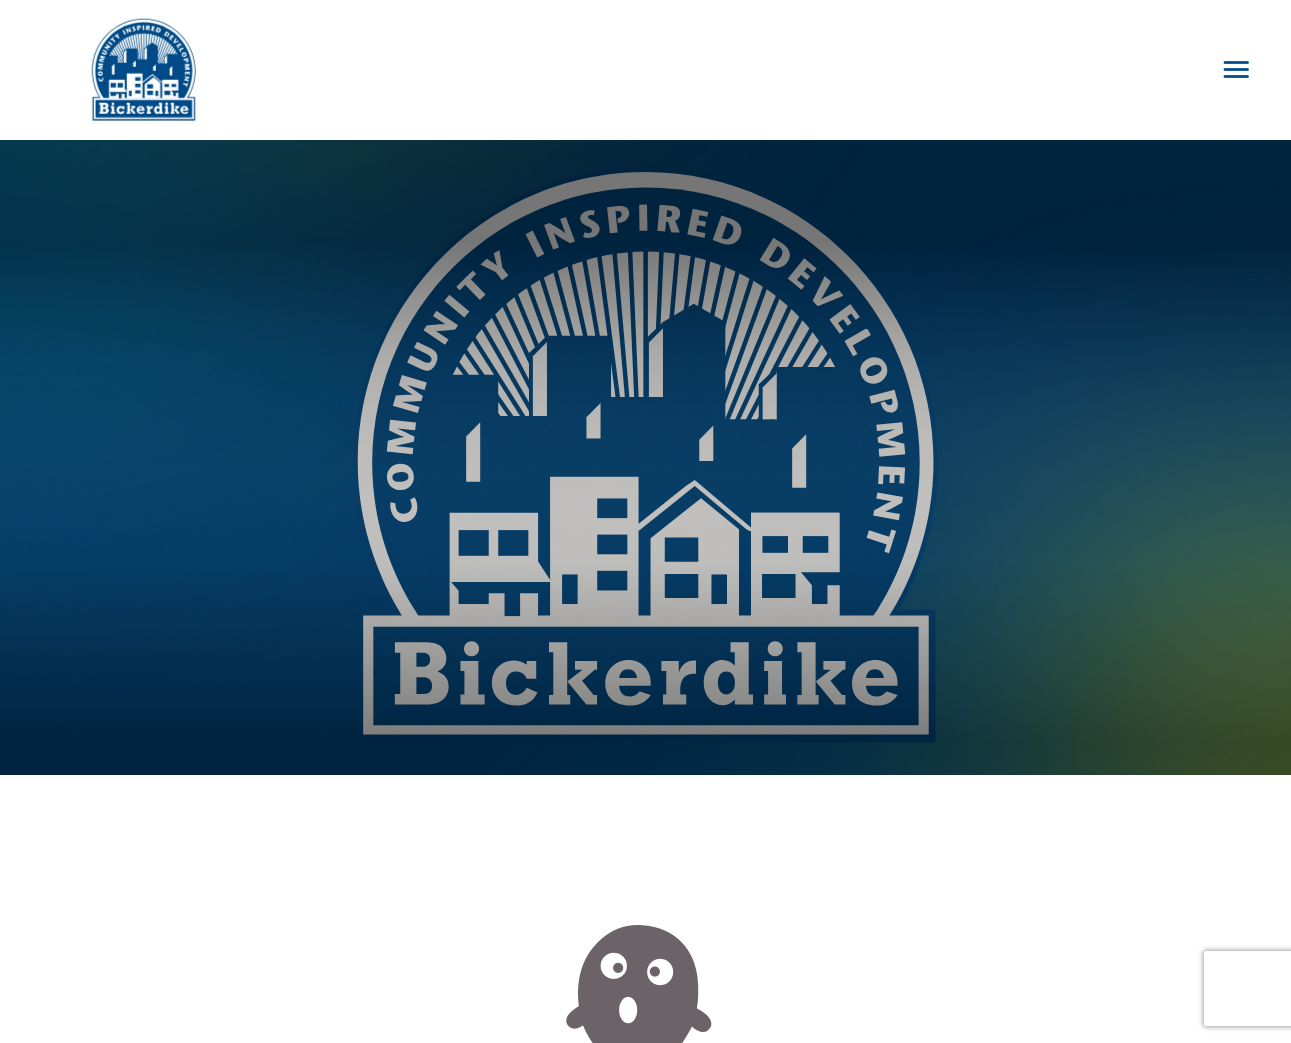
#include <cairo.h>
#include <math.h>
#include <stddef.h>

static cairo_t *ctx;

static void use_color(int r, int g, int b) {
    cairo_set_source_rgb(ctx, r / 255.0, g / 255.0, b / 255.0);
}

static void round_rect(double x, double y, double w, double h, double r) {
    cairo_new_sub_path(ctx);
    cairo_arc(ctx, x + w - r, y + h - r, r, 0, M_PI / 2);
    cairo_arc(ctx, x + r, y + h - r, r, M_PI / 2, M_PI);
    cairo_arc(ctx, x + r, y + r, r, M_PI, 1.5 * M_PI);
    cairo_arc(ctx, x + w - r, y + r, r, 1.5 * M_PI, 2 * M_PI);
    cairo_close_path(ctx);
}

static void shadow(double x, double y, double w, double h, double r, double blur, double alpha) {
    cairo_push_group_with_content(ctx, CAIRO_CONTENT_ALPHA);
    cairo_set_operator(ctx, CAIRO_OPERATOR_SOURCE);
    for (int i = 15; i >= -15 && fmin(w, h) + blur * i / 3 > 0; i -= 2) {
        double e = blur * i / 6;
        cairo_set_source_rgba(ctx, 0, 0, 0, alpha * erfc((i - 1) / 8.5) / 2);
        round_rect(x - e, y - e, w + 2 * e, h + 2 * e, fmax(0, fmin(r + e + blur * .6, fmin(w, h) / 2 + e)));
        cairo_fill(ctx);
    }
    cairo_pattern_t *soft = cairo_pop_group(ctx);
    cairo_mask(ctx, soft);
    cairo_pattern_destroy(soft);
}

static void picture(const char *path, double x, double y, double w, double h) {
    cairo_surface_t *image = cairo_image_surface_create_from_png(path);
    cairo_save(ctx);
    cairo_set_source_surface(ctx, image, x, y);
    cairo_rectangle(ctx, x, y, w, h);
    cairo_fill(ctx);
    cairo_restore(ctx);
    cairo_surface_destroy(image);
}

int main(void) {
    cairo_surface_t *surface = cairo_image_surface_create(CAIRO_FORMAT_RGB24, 1291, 1043);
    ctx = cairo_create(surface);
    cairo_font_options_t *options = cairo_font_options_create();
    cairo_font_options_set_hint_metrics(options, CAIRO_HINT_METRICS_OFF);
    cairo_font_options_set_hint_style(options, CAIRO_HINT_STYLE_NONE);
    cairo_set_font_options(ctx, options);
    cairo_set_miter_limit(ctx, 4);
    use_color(255, 255, 255);
    cairo_paint(ctx);
    picture("img1.png", 91, 18, 105, 103);
    cairo_new_path(ctx);
    cairo_move_to(ctx, 1225, 62.5);
    cairo_line_to(ctx, 1247.5, 62.5);
    cairo_move_to(ctx, 1225, 69.5);
    cairo_line_to(ctx, 1247.5, 69.5);
    cairo_move_to(ctx, 1225, 76.5);
    cairo_line_to(ctx, 1247.5, 76.5);
    use_color(0, 75, 135);
    cairo_set_line_width(ctx, 2.8);
    cairo_set_line_cap(ctx, CAIRO_LINE_CAP_ROUND);
    cairo_set_line_join(ctx, CAIRO_LINE_JOIN_ROUND);
    cairo_stroke(ctx);
    picture("img2.png", 0, 140, 1291, 635);
    picture("img3.png", 0, 140, 1291, 635);
    picture("img4.png", 566, 925, 146, 118);
    cairo_save(ctx);
    cairo_set_fill_rule(ctx, CAIRO_FILL_RULE_EVEN_ODD);
    cairo_new_path(ctx);
    cairo_move_to(ctx, 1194, 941);
    cairo_line_to(ctx, 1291, 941);
    cairo_line_to(ctx, 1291, 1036);
    cairo_line_to(ctx, 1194, 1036);
    cairo_close_path(ctx);
    cairo_move_to(ctx, 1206.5, 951);
    cairo_line_to(ctx, 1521.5, 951);
    cairo_curve_to(ctx, 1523, 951, 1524, 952, 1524, 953.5);
    cairo_line_to(ctx, 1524, 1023.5);
    cairo_curve_to(ctx, 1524, 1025, 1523, 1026, 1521.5, 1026);
    cairo_line_to(ctx, 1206.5, 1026);
    cairo_curve_to(ctx, 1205, 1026, 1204, 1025, 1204, 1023.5);
    cairo_line_to(ctx, 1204, 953.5);
    cairo_curve_to(ctx, 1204, 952, 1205, 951, 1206.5, 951);
    cairo_close_path(ctx);
    cairo_clip(ctx);
    use_color(128, 128, 128);
    shadow(1204, 951, 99, 75, 2.5, 3, 1);
    cairo_restore(ctx);
    cairo_surface_write_to_png(surface, "result.png");
    cairo_font_options_destroy(options);
    cairo_destroy(ctx);
    cairo_surface_destroy(surface);
    return 0;
}
